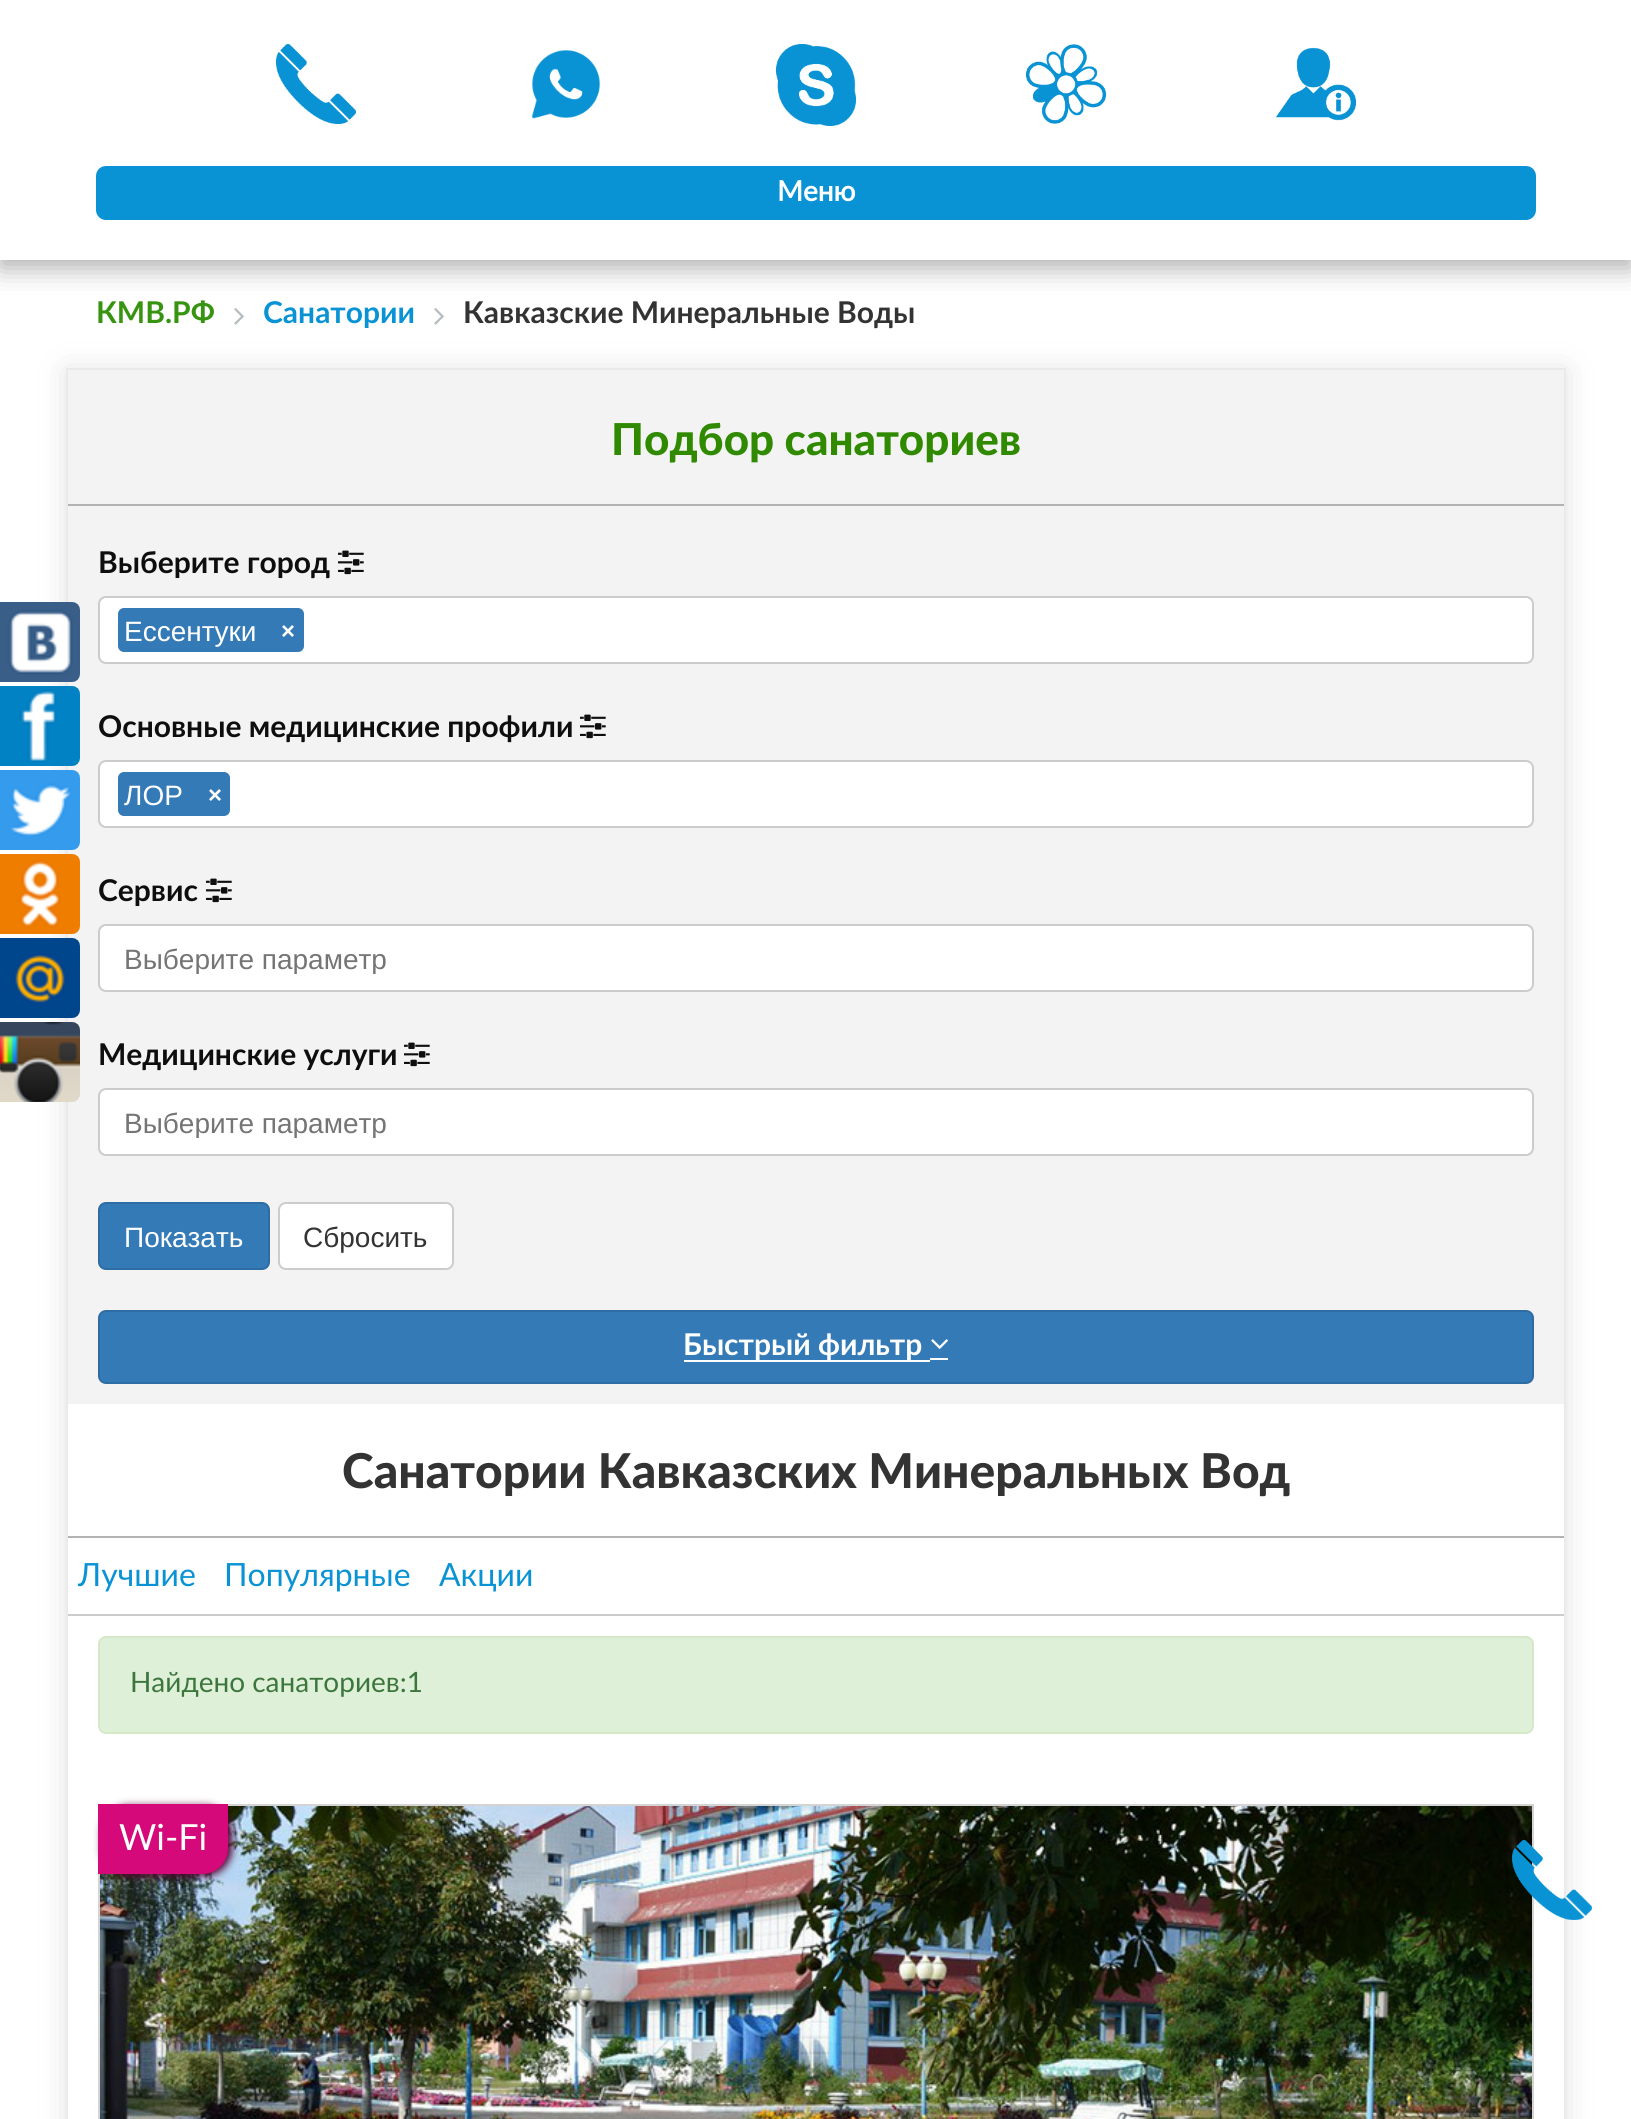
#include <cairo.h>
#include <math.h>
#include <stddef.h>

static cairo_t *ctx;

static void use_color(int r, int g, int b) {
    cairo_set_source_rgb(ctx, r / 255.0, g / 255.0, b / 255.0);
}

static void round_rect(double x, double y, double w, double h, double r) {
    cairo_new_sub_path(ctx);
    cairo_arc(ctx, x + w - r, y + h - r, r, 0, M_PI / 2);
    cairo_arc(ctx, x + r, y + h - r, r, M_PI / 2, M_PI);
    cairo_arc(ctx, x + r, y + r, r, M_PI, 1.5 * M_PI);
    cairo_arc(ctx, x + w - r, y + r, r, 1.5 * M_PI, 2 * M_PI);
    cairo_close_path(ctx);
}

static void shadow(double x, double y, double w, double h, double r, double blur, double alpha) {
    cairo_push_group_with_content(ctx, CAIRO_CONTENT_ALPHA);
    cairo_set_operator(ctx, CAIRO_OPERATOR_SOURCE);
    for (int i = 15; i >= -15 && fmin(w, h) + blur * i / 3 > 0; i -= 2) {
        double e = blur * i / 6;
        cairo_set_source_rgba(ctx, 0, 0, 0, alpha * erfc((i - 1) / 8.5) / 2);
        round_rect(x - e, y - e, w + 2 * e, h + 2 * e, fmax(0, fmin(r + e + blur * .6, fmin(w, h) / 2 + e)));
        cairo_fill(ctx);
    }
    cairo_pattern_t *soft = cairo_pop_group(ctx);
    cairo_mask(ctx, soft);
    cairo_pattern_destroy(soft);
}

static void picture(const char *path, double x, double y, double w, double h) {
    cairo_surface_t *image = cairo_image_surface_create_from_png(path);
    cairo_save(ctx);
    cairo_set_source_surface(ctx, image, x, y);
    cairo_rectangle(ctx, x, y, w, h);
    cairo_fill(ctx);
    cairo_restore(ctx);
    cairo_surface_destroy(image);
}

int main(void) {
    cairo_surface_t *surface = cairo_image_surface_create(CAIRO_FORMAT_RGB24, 1631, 2119);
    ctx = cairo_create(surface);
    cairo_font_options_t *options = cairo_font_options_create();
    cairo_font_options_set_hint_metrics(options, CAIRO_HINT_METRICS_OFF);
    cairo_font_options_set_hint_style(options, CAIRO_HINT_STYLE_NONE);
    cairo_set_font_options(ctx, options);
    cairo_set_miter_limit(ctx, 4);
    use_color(255, 255, 255);
    cairo_paint(ctx);
    cairo_save(ctx);
    cairo_rectangle(ctx, 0, 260, 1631, 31);
    cairo_clip(ctx);
    use_color(94, 94, 94);
    shadow(0, 8, 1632, 260, 0, 13, 0.5);
    cairo_restore(ctx);
    picture("img1.png", 276, 44, 80, 80);
    picture("img2.png", 531, 50, 69, 69);
    picture("img3.png", 776, 44, 80, 82);
    picture("img4.png", 1026, 44, 80, 80);
    picture("img5.png", 1276, 47, 80, 74);
    use_color(9, 147, 212);
    round_rect(96, 166, 1440, 54, 10);
    cairo_fill(ctx);
    cairo_select_font_face(ctx, "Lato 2", CAIRO_FONT_SLANT_NORMAL, CAIRO_FONT_WEIGHT_BOLD);
    cairo_set_font_size(ctx, 28);
    use_color(255, 255, 255);
    cairo_move_to(ctx, 777, 201);
    cairo_show_text(ctx, "Меню");
    cairo_select_font_face(ctx, "Lato", CAIRO_FONT_SLANT_NORMAL, CAIRO_FONT_WEIGHT_BOLD);
    cairo_set_font_size(ctx, 30);
    use_color(55, 148, 16);
    cairo_move_to(ctx, 96, 323);
    cairo_show_text(ctx, "КМВ.РФ");
    picture("img6.png", 234, 308, 10, 17);
    cairo_save(ctx);
    cairo_set_fill_rule(ctx, CAIRO_FILL_RULE_EVEN_ODD);
    cairo_new_path(ctx);
    cairo_move_to(ctx, 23, 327);
    cairo_line_to(ctx, 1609, 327);
    cairo_line_to(ctx, 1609, 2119);
    cairo_line_to(ctx, 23, 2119);
    cairo_close_path(ctx);
    cairo_move_to(ctx, 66, 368);
    cairo_line_to(ctx, 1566, 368);
    cairo_line_to(ctx, 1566, 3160);
    cairo_line_to(ctx, 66, 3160);
    cairo_close_path(ctx);
    cairo_clip(ctx);
    use_color(104, 104, 104);
    shadow(66, 370, 1500, 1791, 0, 14, 0.2);
    cairo_restore(ctx);
    use_color(9, 147, 212);
    cairo_move_to(ctx, 263, 323);
    cairo_show_text(ctx, "Санатории");
    picture("img6.png", 434, 308, 10, 17);
    use_color(51, 51, 51);
    cairo_move_to(ctx, 463, 323);
    cairo_show_text(ctx, "Кавказские Минеральные Воды");
    cairo_rectangle(ctx, 67, 369, 1498, 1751);
    use_color(234, 234, 234);
    cairo_stroke(ctx);
    use_color(243, 243, 243);
    cairo_rectangle(ctx, 68, 370, 1496, 1034);
    cairo_fill(ctx);
    picture("img7.png", 0, 602, 80, 80);
    picture("img8.png", 0, 686, 80, 80);
    picture("img9.png", 0, 770, 80, 80);
    picture("img10.png", 0, 854, 80, 80);
    picture("img11.png", 0, 938, 80, 80);
    picture("img12.png", 0, 1022, 80, 80);
    use_color(178, 178, 178);
    cairo_rectangle(ctx, 68, 504, 1496, 2);
    cairo_fill(ctx);
    cairo_select_font_face(ctx, "Lato ExtraBold", CAIRO_FONT_SLANT_NORMAL, CAIRO_FONT_WEIGHT_NORMAL);
    cairo_set_font_size(ctx, 44);
    use_color(48, 138, 0);
    cairo_move_to(ctx, 611, 455);
    cairo_show_text(ctx, "Подбор санаториев");
    cairo_select_font_face(ctx, "Lato", CAIRO_FONT_SLANT_NORMAL, CAIRO_FONT_WEIGHT_BOLD);
    cairo_set_font_size(ctx, 30);
    use_color(14, 14, 14);
    cairo_move_to(ctx, 98, 573);
    cairo_show_text(ctx, "Выберите город");
    picture("img13.png", 338, 550, 26, 25);
    use_color(255, 255, 255);
    round_rect(99, 597, 1434, 66, 7);
    cairo_fill_preserve(ctx);
    use_color(204, 204, 204);
    cairo_stroke(ctx);
    use_color(51, 122, 183);
    round_rect(118, 608, 186, 44, 6);
    cairo_fill(ctx);
    cairo_select_font_face(ctx, "Liberation Sans", CAIRO_FONT_SLANT_NORMAL, CAIRO_FONT_WEIGHT_NORMAL);
    cairo_set_font_size(ctx, 28);
    use_color(255, 255, 255);
    cairo_move_to(ctx, 124, 641);
    cairo_show_text(ctx, "Ессентуки");
    cairo_select_font_face(ctx, "Liberation Sans", CAIRO_FONT_SLANT_NORMAL, CAIRO_FONT_WEIGHT_BOLD);
    cairo_set_font_size(ctx, 24);
    cairo_move_to(ctx, 281, 639);
    cairo_show_text(ctx, "×");
    cairo_select_font_face(ctx, "Lato", CAIRO_FONT_SLANT_NORMAL, CAIRO_FONT_WEIGHT_BOLD);
    cairo_set_font_size(ctx, 30);
    use_color(14, 14, 14);
    cairo_move_to(ctx, 98, 737);
    cairo_show_text(ctx, "Основные медицинские профили");
    picture("img13.png", 580, 714, 26, 25);
    use_color(255, 255, 255);
    round_rect(99, 761, 1434, 66, 7);
    cairo_fill_preserve(ctx);
    use_color(204, 204, 204);
    cairo_stroke(ctx);
    use_color(51, 122, 183);
    round_rect(118, 772, 112, 44, 6);
    cairo_fill(ctx);
    cairo_select_font_face(ctx, "Liberation Sans", CAIRO_FONT_SLANT_NORMAL, CAIRO_FONT_WEIGHT_NORMAL);
    cairo_set_font_size(ctx, 28);
    use_color(255, 255, 255);
    cairo_move_to(ctx, 124, 805);
    cairo_show_text(ctx, "ЛОР");
    cairo_select_font_face(ctx, "Liberation Sans", CAIRO_FONT_SLANT_NORMAL, CAIRO_FONT_WEIGHT_BOLD);
    cairo_set_font_size(ctx, 24);
    cairo_move_to(ctx, 208, 803);
    cairo_show_text(ctx, "×");
    cairo_select_font_face(ctx, "Lato", CAIRO_FONT_SLANT_NORMAL, CAIRO_FONT_WEIGHT_BOLD);
    cairo_set_font_size(ctx, 30);
    use_color(14, 14, 14);
    cairo_move_to(ctx, 98, 901);
    cairo_show_text(ctx, "Сервис");
    picture("img13.png", 206, 878, 26, 25);
    use_color(255, 255, 255);
    round_rect(99, 925, 1434, 66, 7);
    cairo_fill_preserve(ctx);
    use_color(204, 204, 204);
    cairo_stroke(ctx);
    cairo_save(ctx);
    cairo_rectangle(ctx, 124, 942, 270, 32);
    cairo_clip(ctx);
    cairo_select_font_face(ctx, "Liberation Sans", CAIRO_FONT_SLANT_NORMAL, CAIRO_FONT_WEIGHT_NORMAL);
    cairo_set_font_size(ctx, 28);
    use_color(117, 117, 117);
    cairo_move_to(ctx, 124, 969);
    cairo_show_text(ctx, "Выберите параметр");
    cairo_restore(ctx);
    use_color(14, 14, 14);
    cairo_move_to(ctx, 98, 1065);
    cairo_show_text(ctx, "Медицинские услуги");
    picture("img13.png", 404, 1042, 26, 25);
    use_color(255, 255, 255);
    round_rect(99, 1089, 1434, 66, 7);
    cairo_fill_preserve(ctx);
    use_color(204, 204, 204);
    cairo_stroke(ctx);
    cairo_save(ctx);
    cairo_rectangle(ctx, 124, 1106, 270, 32);
    cairo_clip(ctx);
    cairo_select_font_face(ctx, "Liberation Sans", CAIRO_FONT_SLANT_NORMAL, CAIRO_FONT_WEIGHT_NORMAL);
    cairo_set_font_size(ctx, 28);
    use_color(117, 117, 117);
    cairo_move_to(ctx, 124, 1133);
    cairo_show_text(ctx, "Выберите параметр");
    cairo_restore(ctx);
    use_color(51, 122, 183);
    round_rect(99, 1203, 170, 66, 7);
    cairo_fill_preserve(ctx);
    use_color(46, 109, 164);
    cairo_stroke(ctx);
    cairo_select_font_face(ctx, "Liberation Sans", CAIRO_FONT_SLANT_NORMAL, CAIRO_FONT_WEIGHT_NORMAL);
    cairo_set_font_size(ctx, 28);
    use_color(255, 255, 255);
    cairo_move_to(ctx, 124, 1247);
    cairo_show_text(ctx, "Показать");
    round_rect(279, 1203, 174, 66, 7);
    cairo_fill_preserve(ctx);
    use_color(204, 204, 204);
    cairo_stroke(ctx);
    use_color(51, 51, 51);
    cairo_move_to(ctx, 303, 1247);
    cairo_show_text(ctx, "Сбросить");
    use_color(51, 122, 183);
    round_rect(99, 1311, 1434, 72, 7);
    cairo_fill_preserve(ctx);
    use_color(46, 109, 164);
    cairo_stroke(ctx);
    use_color(255, 255, 255);
    cairo_rectangle(ctx, 684, 1360, 246, 2);
    cairo_fill(ctx);
    cairo_rectangle(ctx, 930, 1358, 18, 2);
    cairo_fill(ctx);
    cairo_select_font_face(ctx, "Lato", CAIRO_FONT_SLANT_NORMAL, CAIRO_FONT_WEIGHT_BOLD);
    cairo_set_font_size(ctx, 30);
    cairo_move_to(ctx, 683, 1355);
    cairo_show_text(ctx, "Быстрый фильтр");
    picture("img14.png", 931, 1339, 17, 10);
    use_color(178, 178, 178);
    cairo_rectangle(ctx, 68, 1536, 1496, 2);
    cairo_fill(ctx);
    cairo_select_font_face(ctx, "Lato ExtraBold", CAIRO_FONT_SLANT_NORMAL, CAIRO_FONT_WEIGHT_NORMAL);
    cairo_set_font_size(ctx, 48);
    use_color(51, 51, 51);
    cairo_move_to(ctx, 342, 1488);
    cairo_show_text(ctx, "Санатории Кавказских Минеральных Вод");
    use_color(204, 204, 204);
    cairo_rectangle(ctx, 68, 1614, 1496, 2);
    cairo_fill(ctx);
    cairo_select_font_face(ctx, "Lato", CAIRO_FONT_SLANT_NORMAL, CAIRO_FONT_WEIGHT_NORMAL);
    cairo_set_font_size(ctx, 32);
    use_color(9, 147, 212);
    cairo_move_to(ctx, 78, 1586);
    cairo_show_text(ctx, "Лучшие");
    cairo_move_to(ctx, 224, 1586);
    cairo_show_text(ctx, "Популярные");
    cairo_move_to(ctx, 439, 1586);
    cairo_show_text(ctx, "Акции");
    use_color(223, 240, 216);
    round_rect(99, 1637, 1434, 96, 7);
    cairo_fill_preserve(ctx);
    use_color(214, 233, 198);
    cairo_stroke(ctx);
    cairo_set_font_size(ctx, 28);
    use_color(60, 118, 61);
    cairo_move_to(ctx, 130, 1692);
    cairo_show_text(ctx, "Найдено санаториев:1");
    picture("img15.png", 100, 1806, 1432, 313);
    cairo_rectangle(ctx, 99, 1805, 1434, 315);
    use_color(212, 212, 212);
    cairo_stroke(ctx);
    use_color(84, 0, 46);
    shadow(102, 1806, 130, 70, 26, 4, 1);
    use_color(214, 9, 122);
    cairo_new_path(ctx);
    cairo_move_to(ctx, 99, 1805);
    cairo_line_to(ctx, 227, 1805);
    cairo_line_to(ctx, 227, 1848);
    cairo_curve_to(ctx, 227, 1862, 216, 1873, 202, 1873);
    cairo_line_to(ctx, 99, 1873);
    cairo_close_path(ctx);
    cairo_fill_preserve(ctx);
    cairo_stroke(ctx);
    cairo_set_font_size(ctx, 36);
    use_color(255, 255, 255);
    cairo_move_to(ctx, 119, 1850);
    cairo_show_text(ctx, "Wi-Fi");
    picture("img16.png", 1512, 1840, 80, 80);
    cairo_surface_write_to_png(surface, "result.png");
    cairo_font_options_destroy(options);
    cairo_destroy(ctx);
    cairo_surface_destroy(surface);
    return 0;
}
